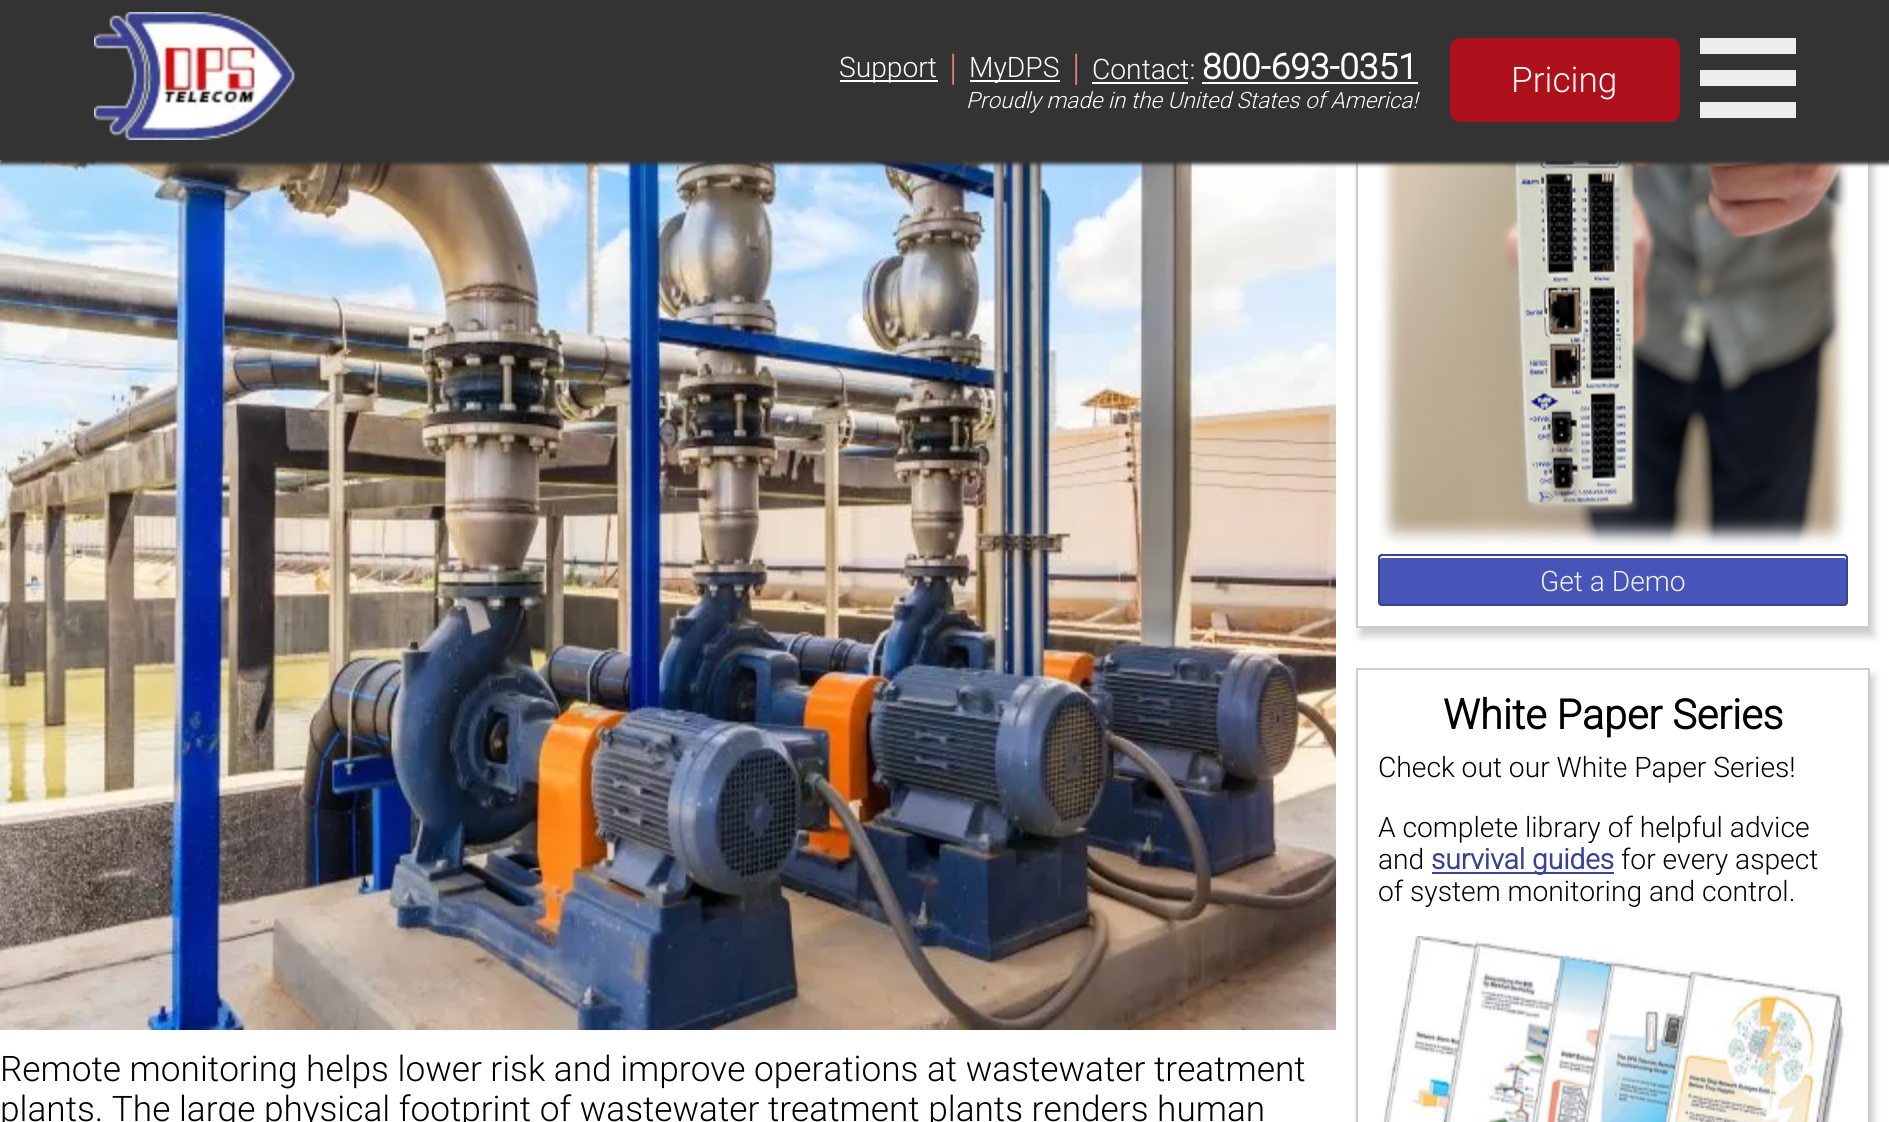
#include <cairo.h>
#include <math.h>
#include <stddef.h>

static cairo_t *ctx;

static void use_color(int r, int g, int b) {
    cairo_set_source_rgb(ctx, r / 255.0, g / 255.0, b / 255.0);
}

static void round_rect(double x, double y, double w, double h, double r) {
    cairo_new_sub_path(ctx);
    cairo_arc(ctx, x + w - r, y + h - r, r, 0, M_PI / 2);
    cairo_arc(ctx, x + r, y + h - r, r, M_PI / 2, M_PI);
    cairo_arc(ctx, x + r, y + r, r, M_PI, 1.5 * M_PI);
    cairo_arc(ctx, x + w - r, y + r, r, 1.5 * M_PI, 2 * M_PI);
    cairo_close_path(ctx);
}

static void shadow(double x, double y, double w, double h, double r, double blur, double alpha) {
    cairo_push_group_with_content(ctx, CAIRO_CONTENT_ALPHA);
    cairo_set_operator(ctx, CAIRO_OPERATOR_SOURCE);
    for (int i = 15; i >= -15 && fmin(w, h) + blur * i / 3 > 0; i -= 2) {
        double e = blur * i / 6;
        cairo_set_source_rgba(ctx, 0, 0, 0, alpha * erfc((i - 1) / 8.5) / 2);
        round_rect(x - e, y - e, w + 2 * e, h + 2 * e, fmax(0, fmin(r + e + blur * .6, fmin(w, h) / 2 + e)));
        cairo_fill(ctx);
    }
    cairo_pattern_t *soft = cairo_pop_group(ctx);
    cairo_mask(ctx, soft);
    cairo_pattern_destroy(soft);
}

static void picture(const char *path, double x, double y, double w, double h) {
    cairo_surface_t *image = cairo_image_surface_create_from_png(path);
    cairo_save(ctx);
    cairo_set_source_surface(ctx, image, x, y);
    cairo_rectangle(ctx, x, y, w, h);
    cairo_fill(ctx);
    cairo_restore(ctx);
    cairo_surface_destroy(image);
}

int main(void) {
    cairo_surface_t *surface = cairo_image_surface_create(CAIRO_FORMAT_RGB24, 1889, 1122);
    ctx = cairo_create(surface);
    cairo_font_options_t *options = cairo_font_options_create();
    cairo_font_options_set_hint_metrics(options, CAIRO_HINT_METRICS_OFF);
    cairo_font_options_set_hint_style(options, CAIRO_HINT_STYLE_NONE);
    cairo_set_font_options(ctx, options);
    cairo_set_miter_limit(ctx, 4);
    use_color(255, 255, 255);
    cairo_paint(ctx);
    cairo_save(ctx);
    cairo_set_fill_rule(ctx, CAIRO_FILL_RULE_EVEN_ODD);
    cairo_new_path(ctx);
    cairo_move_to(ctx, 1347, 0);
    cairo_line_to(ctx, 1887, 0);
    cairo_line_to(ctx, 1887, 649);
    cairo_line_to(ctx, 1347, 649);
    cairo_close_path(ctx);
    cairo_move_to(ctx, 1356, -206);
    cairo_line_to(ctx, 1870, -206);
    cairo_line_to(ctx, 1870, 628);
    cairo_line_to(ctx, 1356, 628);
    cairo_close_path(ctx);
    cairo_clip(ctx);
    use_color(204, 204, 204);
    shadow(1360, -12, 514, 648, 0, 4, 1);
    cairo_restore(ctx);
    cairo_rectangle(ctx, 1357, -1, 512, 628);
    use_color(204, 204, 204);
    cairo_stroke(ctx);
    use_color(51, 51, 51);
    cairo_rectangle(ctx, 0, 0, 1889, 160);
    cairo_fill(ctx);
    picture("img2.png", 1378, 160, 470, 386);
    picture("img4.png", 0, 160, 1336, 870);
    cairo_save(ctx);
    cairo_rectangle(ctx, 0, 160, 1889, 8);
    cairo_clip(ctx);
    use_color(51, 51, 51);
    shadow(0, 4, 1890, 160, 0, 2, 1);
    cairo_restore(ctx);
    picture("img1.png", 94, 12, 201, 128);
    use_color(255, 255, 255);
    cairo_rectangle(ctx, 840, 80, 98, 2);
    cairo_fill(ctx);
    cairo_select_font_face(ctx, "Roboto Light", CAIRO_FONT_SLANT_NORMAL, CAIRO_FONT_WEIGHT_NORMAL);
    cairo_set_font_size(ctx, 28.2);
    cairo_move_to(ctx, 839, 77);
    cairo_show_text(ctx, "Support");
    cairo_set_font_size(ctx, 37);
    use_color(219, 130, 125);
    cairo_move_to(ctx, 949, 80);
    cairo_show_text(ctx, "|");
    use_color(255, 255, 255);
    cairo_rectangle(ctx, 970, 80, 90, 2);
    cairo_fill(ctx);
    cairo_set_font_size(ctx, 28.2);
    cairo_move_to(ctx, 969, 77);
    cairo_show_text(ctx, "MyDPS");
    cairo_set_font_size(ctx, 37);
    use_color(219, 130, 125);
    cairo_move_to(ctx, 1072, 80);
    cairo_show_text(ctx, "|");
    cairo_set_font_size(ctx, 28.2);
    use_color(255, 255, 255);
    cairo_move_to(ctx, 1092, 79);
    cairo_show_text(ctx, "Contact:");
    cairo_rectangle(ctx, 1092, 82, 96, 2);
    cairo_fill(ctx);
    cairo_select_font_face(ctx, "Roboto", CAIRO_FONT_SLANT_NORMAL, CAIRO_FONT_WEIGHT_BOLD);
    cairo_set_font_size(ctx, 35.2);
    cairo_move_to(ctx, 1202, 79);
    cairo_show_text(ctx, "800-693-0351");
    cairo_rectangle(ctx, 1202, 82, 216, 2);
    cairo_fill(ctx);
    cairo_select_font_face(ctx, "Roboto Light", CAIRO_FONT_SLANT_ITALIC, CAIRO_FONT_WEIGHT_NORMAL);
    cairo_set_font_size(ctx, 22.5);
    cairo_move_to(ctx, 966, 108);
    cairo_show_text(ctx, "Proudly made in the United States of America!");
    use_color(175, 17, 28);
    round_rect(1451, 39, 228, 82, 9);
    cairo_fill_preserve(ctx);
    cairo_stroke(ctx);
    cairo_select_font_face(ctx, "Roboto Light", CAIRO_FONT_SLANT_NORMAL, CAIRO_FONT_WEIGHT_NORMAL);
    cairo_set_font_size(ctx, 35.2);
    use_color(255, 255, 255);
    cairo_move_to(ctx, 1511, 92);
    cairo_show_text(ctx, "Pricing");
    use_color(238, 238, 238);
    cairo_new_path(ctx);
    cairo_move_to(ctx, 1796, 54);
    cairo_line_to(ctx, 1700, 54);
    cairo_line_to(ctx, 1700, 38);
    cairo_line_to(ctx, 1796, 38);
    cairo_close_path(ctx);
    cairo_move_to(ctx, 1796, 70);
    cairo_line_to(ctx, 1700, 70);
    cairo_line_to(ctx, 1700, 86);
    cairo_line_to(ctx, 1796, 86);
    cairo_close_path(ctx);
    cairo_move_to(ctx, 1796, 102);
    cairo_line_to(ctx, 1700, 102);
    cairo_line_to(ctx, 1700, 118);
    cairo_line_to(ctx, 1796, 118);
    cairo_close_path(ctx);
    cairo_fill(ctx);
    use_color(71, 84, 184);
    round_rect(1378, 554, 470, 52, 4);
    cairo_fill(ctx);
    use_color(255, 255, 255);
    cairo_new_path(ctx);
    cairo_move_to(ctx, 1382, 558);
    cairo_line_to(ctx, 1844, 558);
    cairo_curve_to(ctx, 1845, 558, 1846, 559, 1846, 560);
    cairo_line_to(ctx, 1846, 557);
    cairo_line_to(ctx, 1845, 556);
    cairo_line_to(ctx, 1382, 556);
    cairo_curve_to(ctx, 1380, 556, 1380, 558, 1380, 560);
    cairo_curve_to(ctx, 1380, 559, 1381, 558, 1382, 558);
    cairo_close_path(ctx);
    cairo_fill(ctx);
    round_rect(1379, 555, 468, 50, 3);
    use_color(57, 67, 147);
    cairo_stroke(ctx);
    cairo_set_font_size(ctx, 28.2);
    use_color(242, 242, 242);
    cairo_move_to(ctx, 1540, 591);
    cairo_show_text(ctx, "Get a Demo");
    cairo_save(ctx);
    cairo_set_fill_rule(ctx, CAIRO_FILL_RULE_EVEN_ODD);
    cairo_new_path(ctx);
    cairo_move_to(ctx, 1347, 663);
    cairo_line_to(ctx, 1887, 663);
    cairo_line_to(ctx, 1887, 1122);
    cairo_line_to(ctx, 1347, 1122);
    cairo_close_path(ctx);
    cairo_move_to(ctx, 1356, 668);
    cairo_line_to(ctx, 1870, 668);
    cairo_line_to(ctx, 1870, 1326);
    cairo_line_to(ctx, 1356, 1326);
    cairo_close_path(ctx);
    cairo_clip(ctx);
    use_color(204, 204, 204);
    shadow(1360, 676, 514, 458, 0, 4, 1);
    cairo_restore(ctx);
    cairo_rectangle(ctx, 1357, 669, 512, 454);
    use_color(204, 204, 204);
    cairo_stroke(ctx);
    cairo_select_font_face(ctx, "Roboto", CAIRO_FONT_SLANT_NORMAL, CAIRO_FONT_WEIGHT_BOLD);
    cairo_set_font_size(ctx, 41.25);
    use_color(0, 0, 0);
    cairo_move_to(ctx, 1443, 729);
    cairo_show_text(ctx, "White Paper Series");
    cairo_select_font_face(ctx, "Roboto Light", CAIRO_FONT_SLANT_NORMAL, CAIRO_FONT_WEIGHT_NORMAL);
    cairo_set_font_size(ctx, 28.2);
    cairo_move_to(ctx, 1378, 777);
    cairo_show_text(ctx, "Check out our White Paper Series!");
    cairo_move_to(ctx, 1378, 837);
    cairo_show_text(ctx, "A complete library of helpful advice");
    cairo_move_to(ctx, 1378, 869);
    cairo_show_text(ctx, "and");
    use_color(57, 67, 147);
    cairo_rectangle(ctx, 1432, 872, 182, 2);
    cairo_fill(ctx);
    cairo_select_font_face(ctx, "Roboto", CAIRO_FONT_SLANT_NORMAL, CAIRO_FONT_WEIGHT_BOLD);
    cairo_move_to(ctx, 1431, 869);
    cairo_show_text(ctx, "survival guides");
    cairo_select_font_face(ctx, "Roboto Light", CAIRO_FONT_SLANT_NORMAL, CAIRO_FONT_WEIGHT_NORMAL);
    use_color(0, 0, 0);
    cairo_move_to(ctx, 1621, 869);
    cairo_show_text(ctx, "for every aspect");
    cairo_move_to(ctx, 1378, 901);
    cairo_show_text(ctx, "of system monitoring and control.");
    picture("img3.png", 1383, 936, 465, 186);
    cairo_set_font_size(ctx, 35.2);
    cairo_move_to(ctx, 0, 1081);
    cairo_show_text(ctx, "Remote monitoring helps lower risk and improve operations at wastewater treatment");
    cairo_move_to(ctx, 0, 1121);
    cairo_show_text(ctx, "plants. The large physical footprint of wastewater treatment plants renders human");
    cairo_surface_write_to_png(surface, "result.png");
    cairo_font_options_destroy(options);
    cairo_destroy(ctx);
    cairo_surface_destroy(surface);
    return 0;
}
